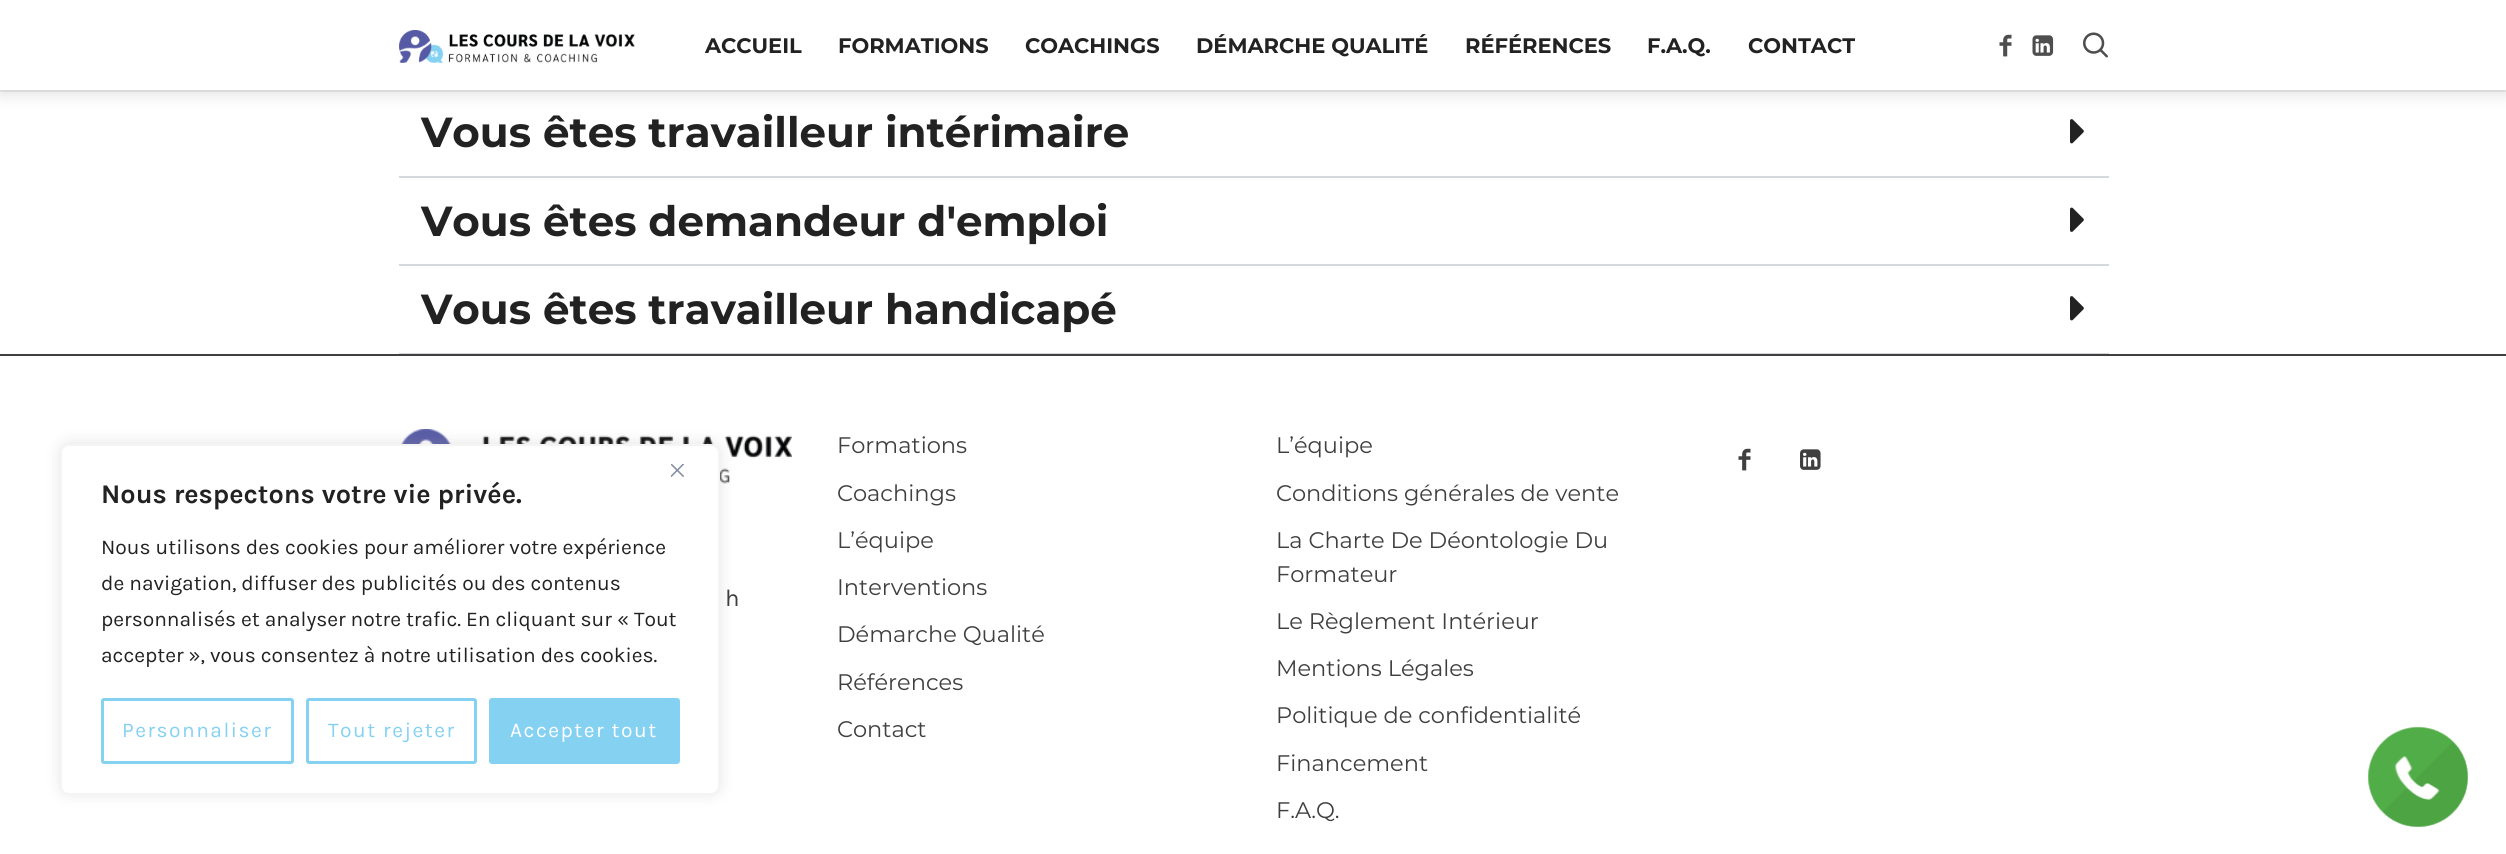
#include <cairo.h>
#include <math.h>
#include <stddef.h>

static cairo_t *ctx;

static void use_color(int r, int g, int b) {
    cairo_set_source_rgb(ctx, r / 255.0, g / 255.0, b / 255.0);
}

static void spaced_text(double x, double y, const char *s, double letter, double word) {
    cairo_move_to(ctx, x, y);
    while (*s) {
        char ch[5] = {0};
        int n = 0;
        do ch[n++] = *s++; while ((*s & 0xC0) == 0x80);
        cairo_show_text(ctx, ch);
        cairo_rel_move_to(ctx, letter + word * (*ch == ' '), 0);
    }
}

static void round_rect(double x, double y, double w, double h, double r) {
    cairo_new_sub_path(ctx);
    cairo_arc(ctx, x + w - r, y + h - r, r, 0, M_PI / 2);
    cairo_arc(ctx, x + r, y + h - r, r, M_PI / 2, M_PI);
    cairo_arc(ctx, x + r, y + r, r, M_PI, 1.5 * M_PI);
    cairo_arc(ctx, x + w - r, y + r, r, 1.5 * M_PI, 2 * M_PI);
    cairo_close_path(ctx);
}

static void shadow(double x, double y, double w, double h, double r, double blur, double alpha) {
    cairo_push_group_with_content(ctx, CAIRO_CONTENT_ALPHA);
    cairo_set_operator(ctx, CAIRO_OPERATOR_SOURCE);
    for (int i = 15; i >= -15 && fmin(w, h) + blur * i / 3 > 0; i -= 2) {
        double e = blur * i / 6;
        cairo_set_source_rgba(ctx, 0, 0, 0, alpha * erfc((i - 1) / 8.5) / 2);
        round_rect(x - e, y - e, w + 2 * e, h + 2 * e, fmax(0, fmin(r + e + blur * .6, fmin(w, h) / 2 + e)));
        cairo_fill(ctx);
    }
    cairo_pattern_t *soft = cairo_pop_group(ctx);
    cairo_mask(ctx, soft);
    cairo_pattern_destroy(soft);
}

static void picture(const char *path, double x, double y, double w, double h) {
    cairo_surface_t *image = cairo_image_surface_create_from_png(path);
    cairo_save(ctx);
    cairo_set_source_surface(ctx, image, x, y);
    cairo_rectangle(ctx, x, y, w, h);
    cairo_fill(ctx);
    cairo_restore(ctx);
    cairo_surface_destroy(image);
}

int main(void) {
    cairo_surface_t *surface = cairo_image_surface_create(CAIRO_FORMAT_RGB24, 2506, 854);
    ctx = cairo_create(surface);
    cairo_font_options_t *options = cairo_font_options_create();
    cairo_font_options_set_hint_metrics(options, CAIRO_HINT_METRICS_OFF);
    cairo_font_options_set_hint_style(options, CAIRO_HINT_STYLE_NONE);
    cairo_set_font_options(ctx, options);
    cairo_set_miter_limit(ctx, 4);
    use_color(255, 255, 255);
    cairo_paint(ctx);
    use_color(237, 237, 237);
    cairo_rectangle(ctx, 0, 90, 2506, 2);
    cairo_fill(ctx);
    picture("img10.png", 401, 429, 391, 55);
    use_color(172, 171, 171);
    shadow(60, 443, 660, 351, 9, 7.5, 0.3);
    use_color(255, 255, 255);
    round_rect(61, 445, 658, 349, 8);
    cairo_fill_preserve(ctx);
    use_color(244, 244, 244);
    cairo_stroke(ctx);
    picture("img1.png", 671, 464, 13, 13);
    cairo_select_font_face(ctx, "Karla", CAIRO_FONT_SLANT_NORMAL, CAIRO_FONT_WEIGHT_BOLD);
    cairo_set_font_size(ctx, 27);
    use_color(34, 34, 34);
    cairo_move_to(ctx, 101, 503);
    cairo_show_text(ctx, "Nous respectons votre vie privée.");
    cairo_select_font_face(ctx, "Karla", CAIRO_FONT_SLANT_NORMAL, CAIRO_FONT_WEIGHT_NORMAL);
    cairo_set_font_size(ctx, 21);
    cairo_move_to(ctx, 101, 554);
    cairo_show_text(ctx, "Nous utilisons des cookies pour améliorer votre expérience");
    cairo_move_to(ctx, 101, 590);
    cairo_show_text(ctx, "de navigation, diffuser des publicités ou des contenus");
    cairo_move_to(ctx, 101, 626);
    cairo_show_text(ctx, "personnalisés et analyser notre trafic. En cliquant sur « Tout");
    cairo_move_to(ctx, 101, 662);
    cairo_show_text(ctx, "accepter », vous consentez à notre utilisation des cookies.");
    round_rect(102.5, 699.5, 190, 63, 1.5);
    use_color(132, 209, 242);
    cairo_set_line_width(ctx, 3);
    cairo_stroke(ctx);
    spaced_text(122, 737, "Personnaliser", 1.5, 0);
    round_rect(307.5, 699.5, 168, 63, 1.5);
    cairo_stroke(ctx);
    spaced_text(328, 737, "Tout rejeter", 1.5, 0);
    round_rect(490.5, 699.5, 188, 63, 1.5);
    cairo_fill_preserve(ctx);
    cairo_stroke(ctx);
    use_color(255, 255, 255);
    spaced_text(510, 737, "Accepter tout", 1.5, 0);
    use_color(17, 17, 17);
    shadow(0, 5, 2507, 90, 0, 7.5, 0.12);
    use_color(255, 255, 255);
    cairo_rectangle(ctx, 0, 0, 2506, 90);
    cairo_fill(ctx);
    picture("img2.png", 399, 30, 236, 33);
    cairo_select_font_face(ctx, "Montserrat", CAIRO_FONT_SLANT_NORMAL, CAIRO_FONT_WEIGHT_BOLD);
    use_color(34, 34, 34);
    cairo_move_to(ctx, 705, 53);
    cairo_show_text(ctx, "ACCUEIL");
    cairo_move_to(ctx, 838, 53);
    cairo_show_text(ctx, "FORMATIONS");
    cairo_move_to(ctx, 1025, 53);
    cairo_show_text(ctx, "COACHINGS");
    cairo_move_to(ctx, 1196, 53);
    cairo_show_text(ctx, "DÉMARCHE QUALITÉ");
    cairo_move_to(ctx, 1465, 53);
    cairo_show_text(ctx, "RÉFÉRENCES");
    cairo_move_to(ctx, 1647, 53);
    cairo_show_text(ctx, "F.A.Q.");
    cairo_move_to(ctx, 1748, 53);
    cairo_show_text(ctx, "CONTACT");
    picture("img3.png", 1999, 34, 13, 23);
    picture("img4.png", 2032, 35, 22, 21);
    picture("img5.png", 2083, 32, 25, 26);
    use_color(213, 216, 220);
    cairo_rectangle(ctx, 399, 176, 1710, 2);
    cairo_fill(ctx);
    cairo_set_font_size(ctx, 42);
    use_color(34, 34, 34);
    cairo_move_to(ctx, 421, 147);
    cairo_show_text(ctx, "Vous êtes travailleur intérimaire");
    picture("img6.png", 2070, 119, 14, 25);
    use_color(213, 216, 220);
    cairo_rectangle(ctx, 399, 264, 1710, 2);
    cairo_fill(ctx);
    use_color(34, 34, 34);
    cairo_move_to(ctx, 421, 236);
    cairo_show_text(ctx, "Vous êtes demandeur d'emploi");
    picture("img7.png", 2070, 207, 14, 25);
    use_color(213, 216, 220);
    cairo_rectangle(ctx, 399, 353, 1710, 1);
    cairo_fill(ctx);
    use_color(34, 34, 34);
    cairo_move_to(ctx, 421, 324);
    cairo_show_text(ctx, "Vous êtes travailleur handicapé");
    picture("img6.png", 2070, 296, 14, 25);
    use_color(63, 63, 63);
    cairo_rectangle(ctx, 0, 354, 2506, 2);
    cairo_fill(ctx);
    cairo_select_font_face(ctx, "Montserrat", CAIRO_FONT_SLANT_NORMAL, CAIRO_FONT_WEIGHT_NORMAL);
    cairo_set_font_size(ctx, 22.5);
    cairo_move_to(ctx, 837, 453);
    cairo_show_text(ctx, "Formations");
    cairo_move_to(ctx, 837, 501);
    cairo_show_text(ctx, "Coachings");
    cairo_move_to(ctx, 837, 548);
    cairo_show_text(ctx, "L’équipe");
    cairo_move_to(ctx, 837, 595);
    cairo_show_text(ctx, "Interventions");
    cairo_move_to(ctx, 837, 642);
    cairo_show_text(ctx, "Démarche Qualité");
    cairo_move_to(ctx, 837, 690);
    cairo_show_text(ctx, "Références");
    cairo_move_to(ctx, 837, 737);
    cairo_show_text(ctx, "Contact");
    cairo_move_to(ctx, 1276, 453);
    cairo_show_text(ctx, "L’équipe");
    cairo_move_to(ctx, 1276, 501);
    cairo_show_text(ctx, "Conditions générales de vente");
    cairo_move_to(ctx, 1276, 548);
    cairo_show_text(ctx, "La Charte De Déontologie Du");
    cairo_move_to(ctx, 1276, 582);
    cairo_show_text(ctx, "Formateur");
    cairo_move_to(ctx, 1276, 629);
    cairo_show_text(ctx, "Le Règlement Intérieur");
    cairo_move_to(ctx, 1276, 676);
    cairo_show_text(ctx, "Mentions Légales");
    cairo_move_to(ctx, 1276, 723);
    cairo_show_text(ctx, "Politique de confidentialité");
    cairo_move_to(ctx, 1276, 771);
    cairo_show_text(ctx, "Financement");
    cairo_move_to(ctx, 1276, 818);
    cairo_show_text(ctx, "F.A.Q.");
    picture("img8.png", 1738, 448, 13, 23);
    picture("img9.png", 1800, 449, 21, 21);
    cairo_select_font_face(ctx, "Karla", CAIRO_FONT_SLANT_NORMAL, CAIRO_FONT_WEIGHT_NORMAL);
    cairo_set_font_size(ctx, 24);
    cairo_move_to(ctx, 725, 606);
    cairo_show_text(ctx, "h");
    picture("img11.png", 2368, 727, 100, 100);
    picture("img12.png", 2368, 727, 100, 100);
    cairo_surface_write_to_png(surface, "result.png");
    cairo_font_options_destroy(options);
    cairo_destroy(ctx);
    cairo_surface_destroy(surface);
    return 0;
}
